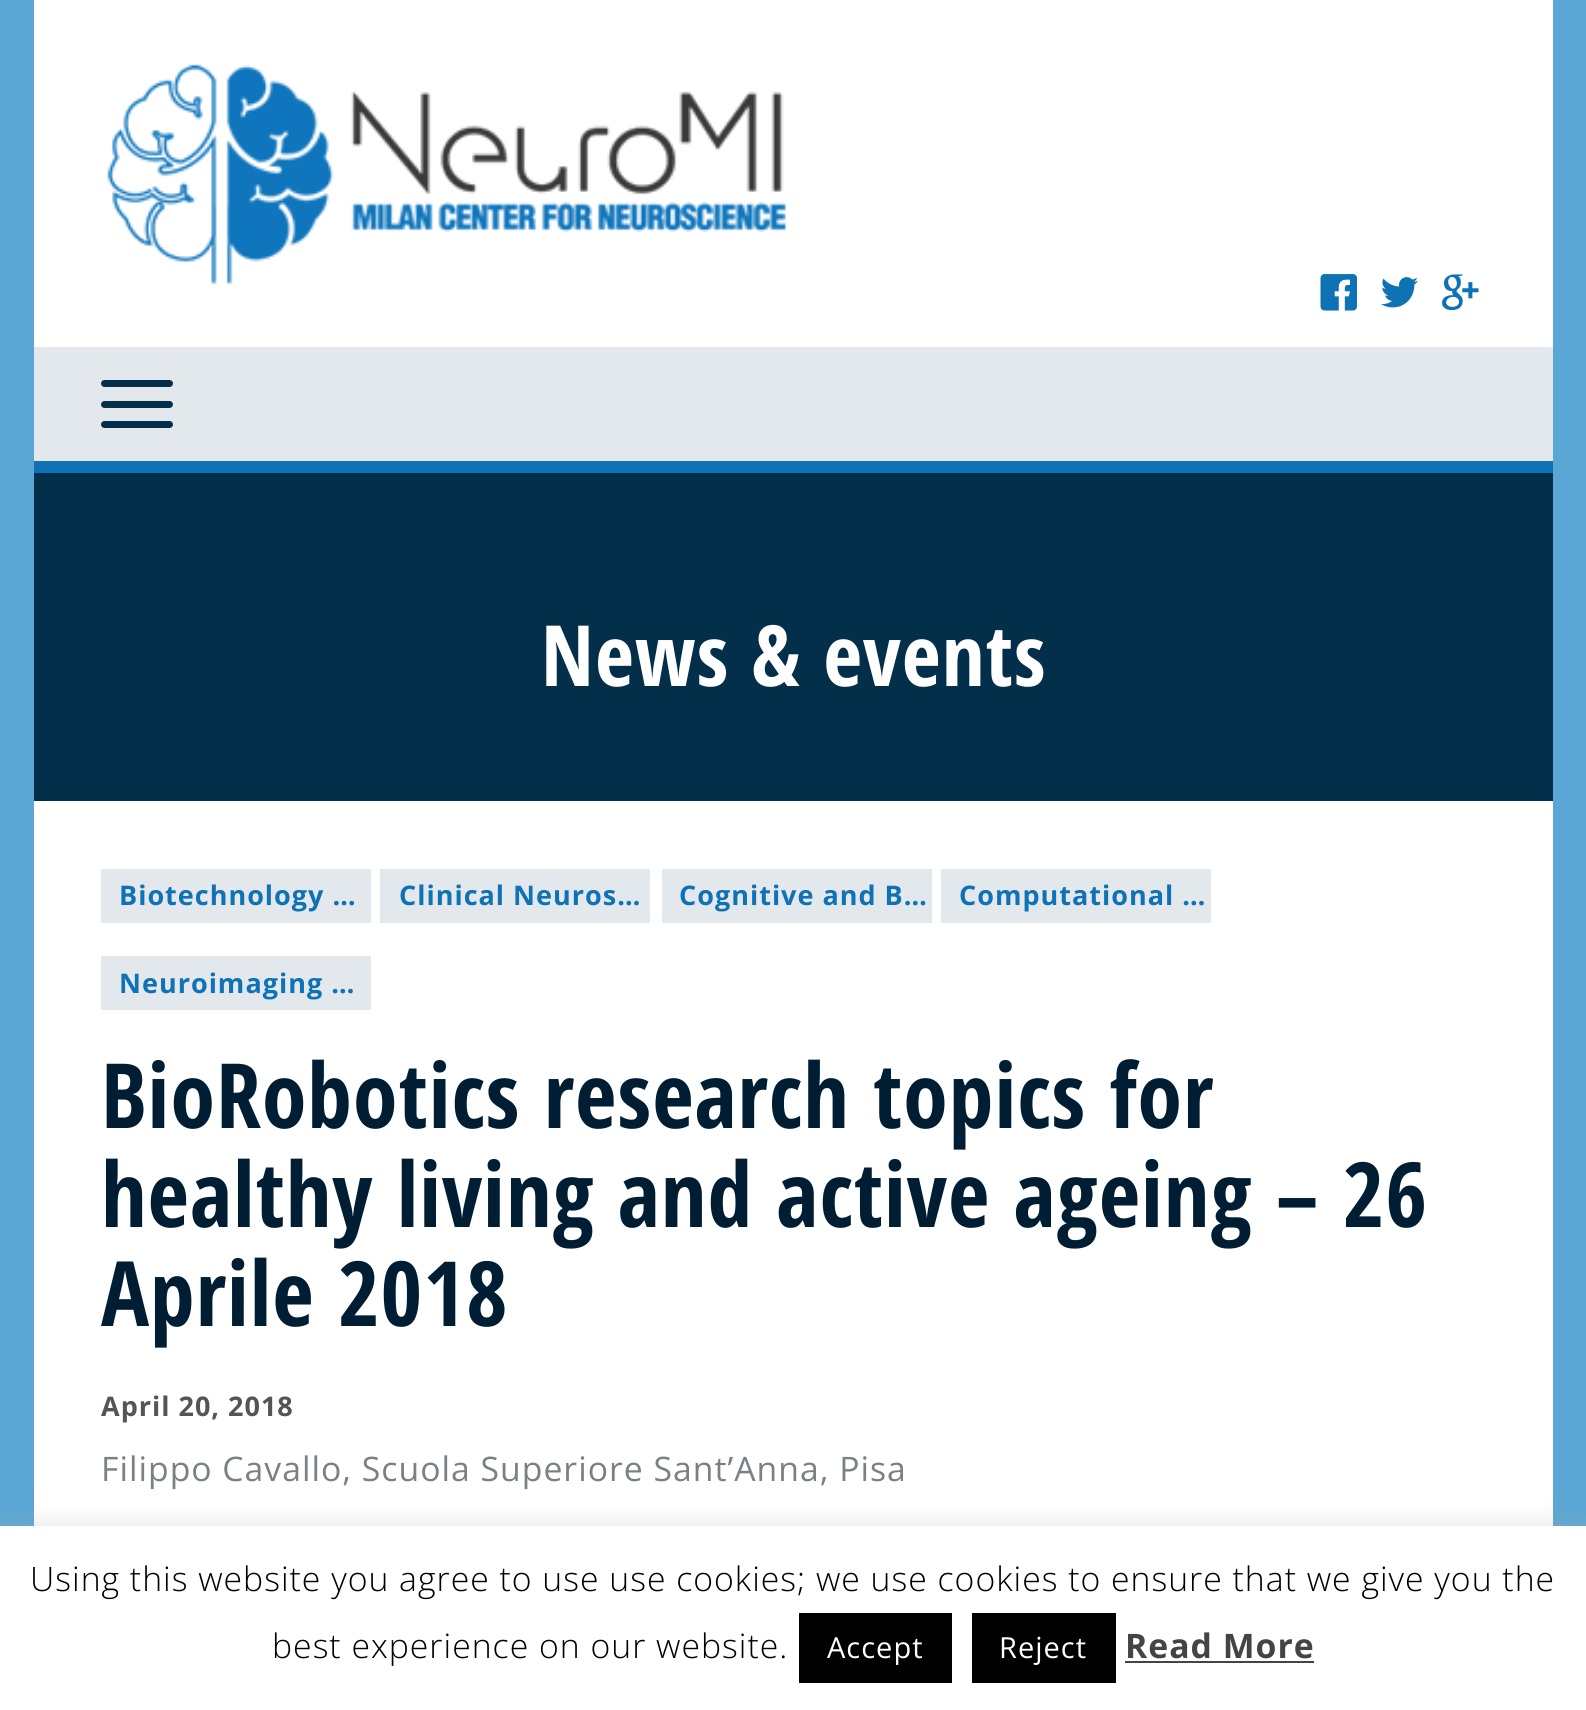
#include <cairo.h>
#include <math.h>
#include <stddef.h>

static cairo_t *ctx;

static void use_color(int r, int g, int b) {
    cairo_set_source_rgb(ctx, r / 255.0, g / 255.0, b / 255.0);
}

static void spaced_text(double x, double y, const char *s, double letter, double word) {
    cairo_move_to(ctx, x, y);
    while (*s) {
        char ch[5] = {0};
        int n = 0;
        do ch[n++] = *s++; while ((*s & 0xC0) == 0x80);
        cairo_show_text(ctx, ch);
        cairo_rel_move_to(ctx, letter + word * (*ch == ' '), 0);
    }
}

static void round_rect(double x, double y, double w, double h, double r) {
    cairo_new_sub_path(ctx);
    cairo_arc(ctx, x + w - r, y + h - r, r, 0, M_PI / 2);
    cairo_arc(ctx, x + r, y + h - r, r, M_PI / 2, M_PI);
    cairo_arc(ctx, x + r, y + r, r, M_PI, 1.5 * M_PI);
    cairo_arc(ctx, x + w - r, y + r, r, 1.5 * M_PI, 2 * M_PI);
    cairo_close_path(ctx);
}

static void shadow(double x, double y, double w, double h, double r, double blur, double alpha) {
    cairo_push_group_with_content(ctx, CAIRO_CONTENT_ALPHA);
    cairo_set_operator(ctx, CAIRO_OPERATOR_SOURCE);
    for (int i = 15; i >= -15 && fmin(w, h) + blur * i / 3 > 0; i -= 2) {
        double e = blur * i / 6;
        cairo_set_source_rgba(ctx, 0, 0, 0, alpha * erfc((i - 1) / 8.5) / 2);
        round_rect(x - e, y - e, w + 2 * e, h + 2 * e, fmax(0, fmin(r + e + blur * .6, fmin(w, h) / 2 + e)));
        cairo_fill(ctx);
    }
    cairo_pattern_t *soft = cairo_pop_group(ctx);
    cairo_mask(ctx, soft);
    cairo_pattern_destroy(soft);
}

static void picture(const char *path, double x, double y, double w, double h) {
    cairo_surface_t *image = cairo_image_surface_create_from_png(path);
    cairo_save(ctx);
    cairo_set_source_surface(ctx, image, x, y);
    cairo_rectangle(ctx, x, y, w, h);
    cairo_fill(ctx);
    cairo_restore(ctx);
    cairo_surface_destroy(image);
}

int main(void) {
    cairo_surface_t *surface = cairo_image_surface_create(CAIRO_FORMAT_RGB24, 1586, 1710);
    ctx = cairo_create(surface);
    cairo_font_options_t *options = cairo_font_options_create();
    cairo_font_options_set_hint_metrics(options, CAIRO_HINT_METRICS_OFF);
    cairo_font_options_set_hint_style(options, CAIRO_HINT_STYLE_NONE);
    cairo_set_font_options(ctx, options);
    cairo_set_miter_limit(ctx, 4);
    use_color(90, 166, 212);
    cairo_paint(ctx);
    use_color(255, 255, 255);
    cairo_rectangle(ctx, 34, 0, 1519, 347);
    cairo_fill(ctx);
    picture("img1.png", 107, 64, 679, 221);
    picture("img2.png", 1320, 274, 37, 37);
    picture("img3.png", 1381, 277, 37, 31);
    picture("img4.png", 1442, 274, 37, 37);
    use_color(227, 232, 237);
    cairo_rectangle(ctx, 34, 347, 1519, 114);
    cairo_fill(ctx);
    use_color(14, 114, 181);
    cairo_rectangle(ctx, 34, 461, 1519, 12);
    cairo_fill(ctx);
    use_color(4, 47, 75);
    round_rect(101, 380, 72, 7, 3.5);
    cairo_fill(ctx);
    round_rect(101, 401, 72, 7, 3.5);
    cairo_fill(ctx);
    round_rect(101, 421, 72, 7, 3.5);
    cairo_fill(ctx);
    use_color(255, 255, 255);
    cairo_rectangle(ctx, 34, 801, 1519, 725);
    cairo_fill(ctx);
    use_color(4, 47, 75);
    cairo_rectangle(ctx, 34, 473, 1519, 328);
    cairo_fill(ctx);
    cairo_select_font_face(ctx, "Open Sans Condensed", CAIRO_FONT_SLANT_NORMAL, CAIRO_FONT_WEIGHT_BOLD);
    cairo_set_font_size(ctx, 84.5);
    use_color(255, 255, 255);
    spaced_text(541, 686, "News & events", 1, 0);
    use_color(227, 232, 237);
    cairo_rectangle(ctx, 101, 869, 270, 54);
    cairo_fill(ctx);
    cairo_select_font_face(ctx, "Open Sans", CAIRO_FONT_SLANT_NORMAL, CAIRO_FONT_WEIGHT_BOLD);
    cairo_set_font_size(ctx, 27);
    use_color(14, 114, 181);
    spaced_text(119, 905, "Biotechnology …", 1, 0);
    use_color(227, 232, 237);
    cairo_rectangle(ctx, 380, 869, 270, 54);
    cairo_fill(ctx);
    use_color(14, 114, 181);
    spaced_text(399, 905, "Clinical Neuros…", 1, 0);
    use_color(227, 232, 237);
    cairo_rectangle(ctx, 662, 869, 270, 54);
    cairo_fill(ctx);
    use_color(14, 114, 181);
    spaced_text(679, 905, "Cognitive and B…", 1, 0);
    use_color(227, 232, 237);
    cairo_rectangle(ctx, 941, 869, 270, 54);
    cairo_fill(ctx);
    use_color(14, 114, 181);
    spaced_text(959, 905, "Computational …", 1, 0);
    use_color(227, 232, 237);
    cairo_rectangle(ctx, 101, 956, 270, 54);
    cairo_fill(ctx);
    use_color(14, 114, 181);
    spaced_text(119, 993, "Neuroimaging …", 1, 0);
    cairo_select_font_face(ctx, "Open Sans Condensed", CAIRO_FONT_SLANT_NORMAL, CAIRO_FONT_WEIGHT_BOLD);
    cairo_set_font_size(ctx, 90);
    use_color(0, 30, 51);
    spaced_text(101, 1128, "BioRobotics research topics for", 1, 0);
    spaced_text(101, 1227, "healthy living and active ageing – 26", 1, 0);
    spaced_text(101, 1326, "Aprile 2018", 1, 0);
    cairo_select_font_face(ctx, "Open Sans", CAIRO_FONT_SLANT_NORMAL, CAIRO_FONT_WEIGHT_BOLD);
    cairo_set_font_size(ctx, 27);
    use_color(85, 85, 85);
    spaced_text(101, 1416, "April 20, 2018", 1, 0);
    cairo_select_font_face(ctx, "Open Sans", CAIRO_FONT_SLANT_NORMAL, CAIRO_FONT_WEIGHT_NORMAL);
    cairo_set_font_size(ctx, 33.75);
    use_color(121, 129, 134);
    spaced_text(101, 1481, "Filippo Cavallo, Scuola Superiore Sant’Anna, Pisa", 1, 0);
    use_color(172, 171, 171);
    shadow(0, 1523, 1586, 185, 0, 11, 0.3);
    use_color(255, 255, 255);
    cairo_rectangle(ctx, 0, 1526, 1586, 184);
    cairo_fill(ctx);
    cairo_select_font_face(ctx, "Open Sans Light", CAIRO_FONT_SLANT_NORMAL, CAIRO_FONT_WEIGHT_NORMAL);
    use_color(0, 0, 0);
    spaced_text(30, 1591, "Using this website you agree to use use cookies; we use cookies to ensure that we give you the", 1, 0);
    spaced_text(272, 1658, "best experience on our website.", 1, 0);
    cairo_rectangle(ctx, 799, 1613, 153, 70);
    cairo_fill(ctx);
    cairo_select_font_face(ctx, "Open Sans", CAIRO_FONT_SLANT_NORMAL, CAIRO_FONT_WEIGHT_NORMAL);
    cairo_set_font_size(ctx, 29);
    use_color(255, 255, 255);
    spaced_text(827, 1658, "Accept", 1, 0);
    use_color(0, 0, 0);
    cairo_rectangle(ctx, 972, 1613, 144, 70);
    cairo_fill(ctx);
    use_color(255, 255, 255);
    spaced_text(999, 1658, "Reject", 1, 0);
    cairo_select_font_face(ctx, "Open Sans", CAIRO_FONT_SLANT_NORMAL, CAIRO_FONT_WEIGHT_BOLD);
    cairo_set_font_size(ctx, 33.75);
    use_color(68, 68, 68);
    spaced_text(1125, 1658, "Read More", 1, 0);
    cairo_rectangle(ctx, 1125, 1661, 189, 2);
    cairo_fill(ctx);
    cairo_surface_write_to_png(surface, "result.png");
    cairo_font_options_destroy(options);
    cairo_destroy(ctx);
    cairo_surface_destroy(surface);
    return 0;
}
